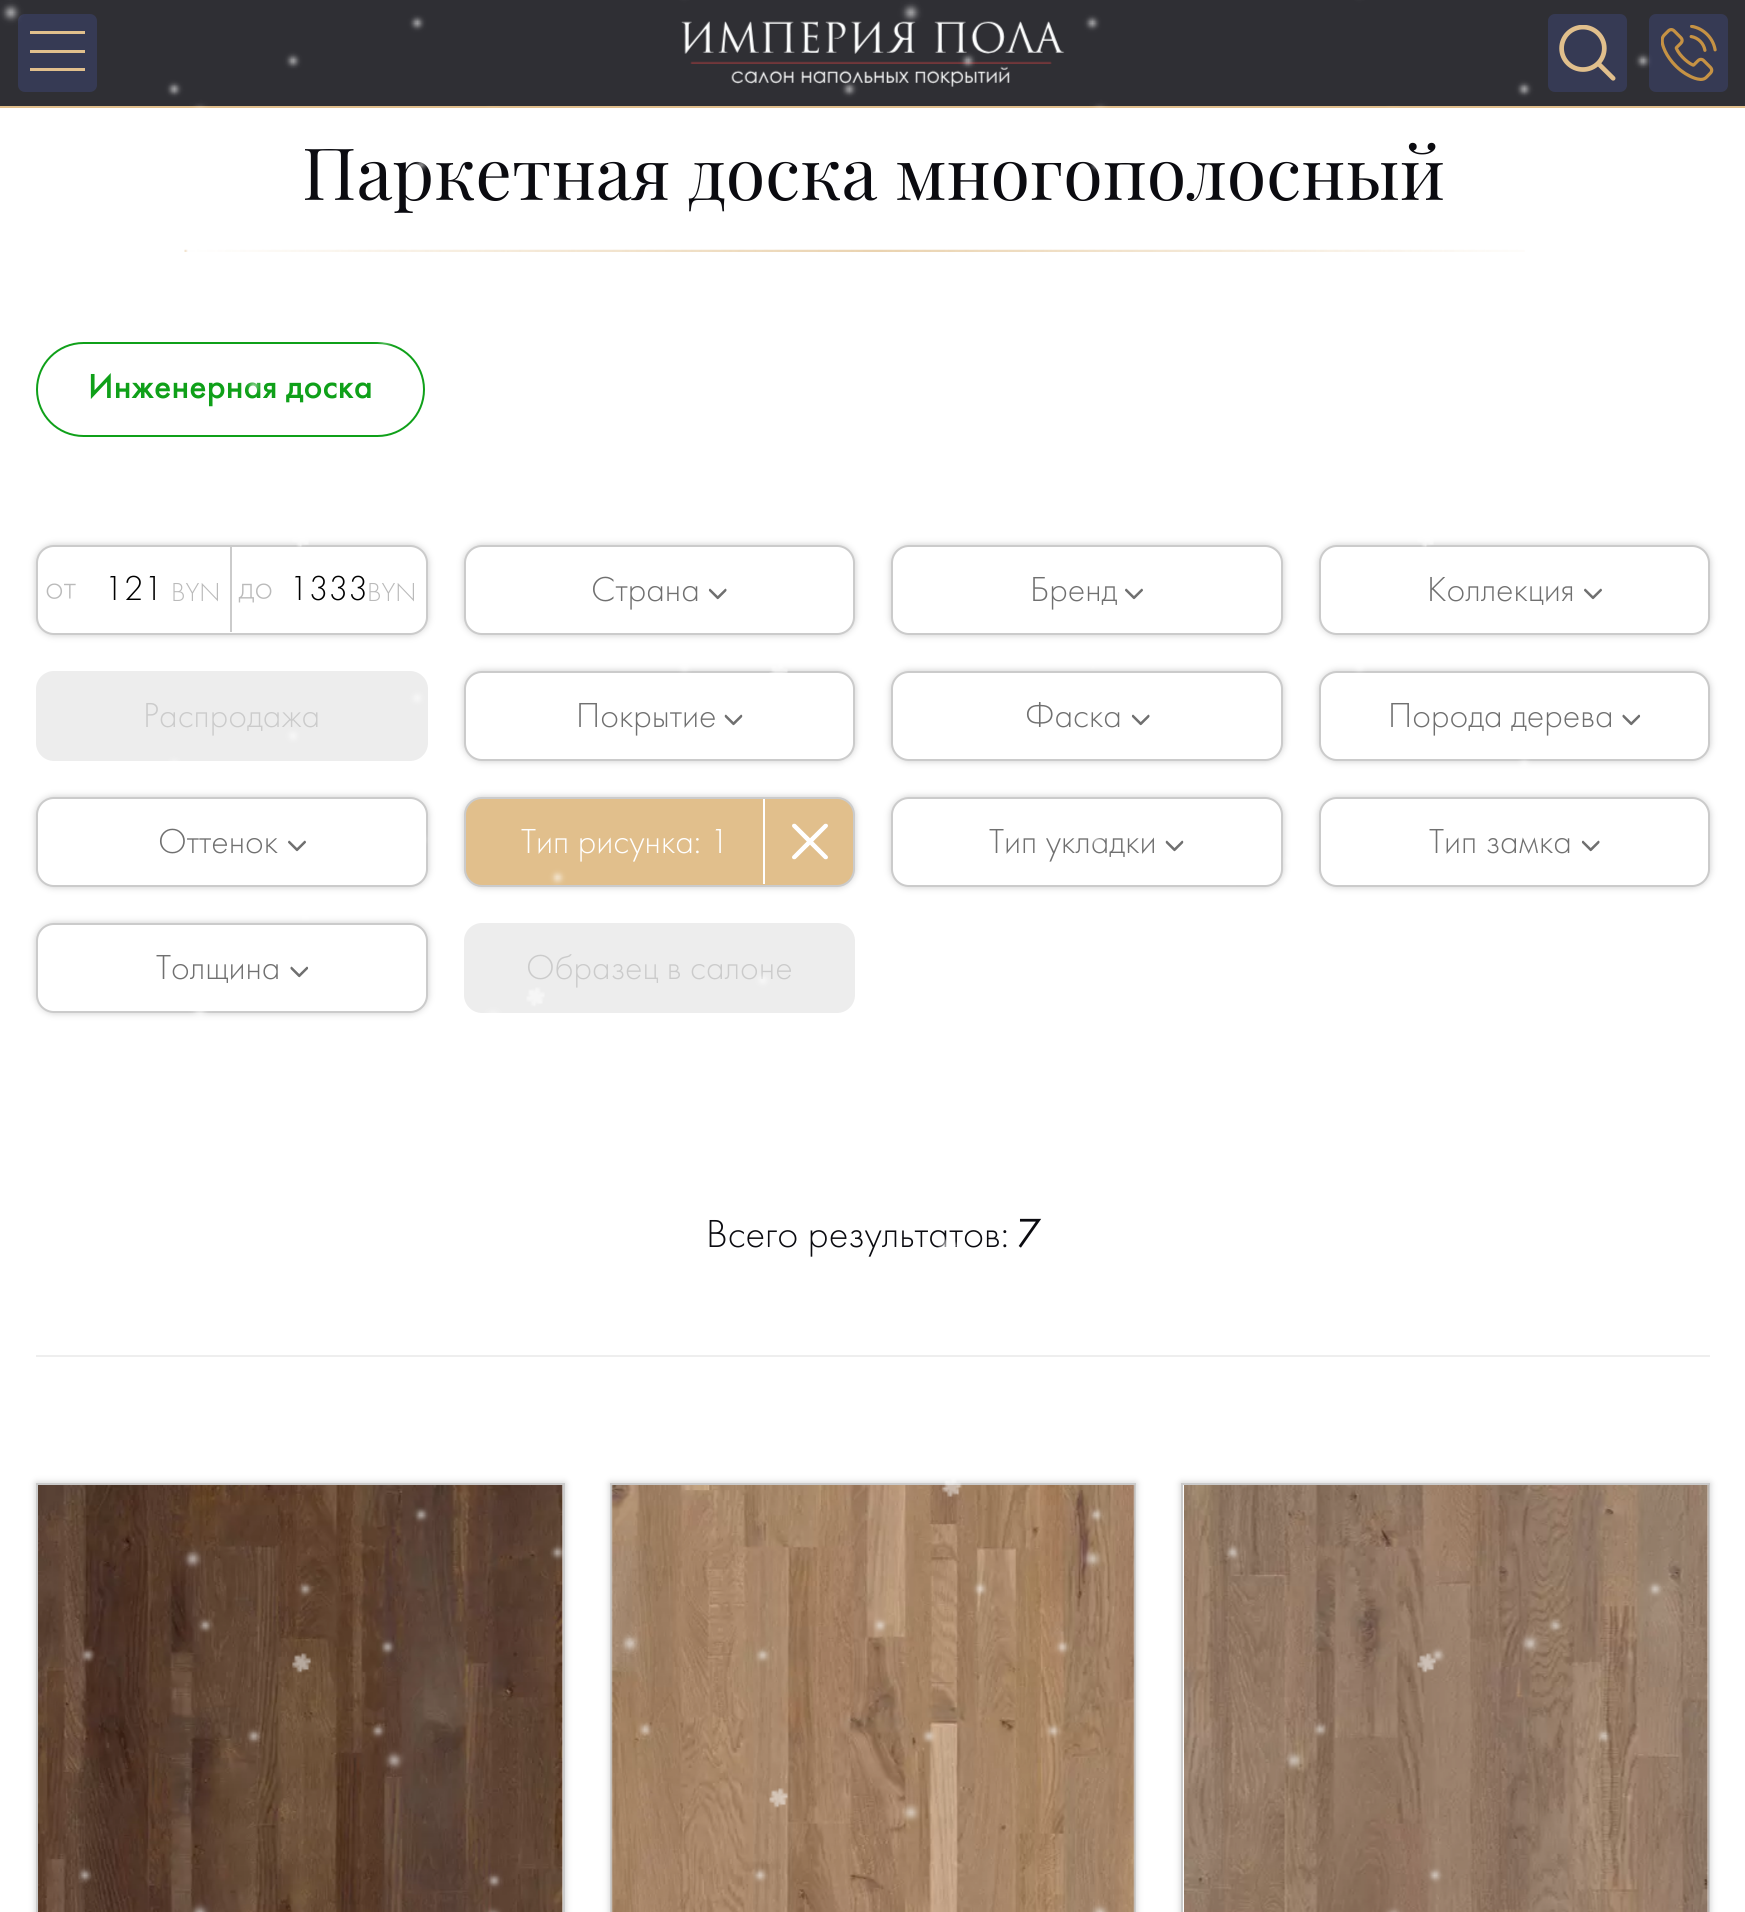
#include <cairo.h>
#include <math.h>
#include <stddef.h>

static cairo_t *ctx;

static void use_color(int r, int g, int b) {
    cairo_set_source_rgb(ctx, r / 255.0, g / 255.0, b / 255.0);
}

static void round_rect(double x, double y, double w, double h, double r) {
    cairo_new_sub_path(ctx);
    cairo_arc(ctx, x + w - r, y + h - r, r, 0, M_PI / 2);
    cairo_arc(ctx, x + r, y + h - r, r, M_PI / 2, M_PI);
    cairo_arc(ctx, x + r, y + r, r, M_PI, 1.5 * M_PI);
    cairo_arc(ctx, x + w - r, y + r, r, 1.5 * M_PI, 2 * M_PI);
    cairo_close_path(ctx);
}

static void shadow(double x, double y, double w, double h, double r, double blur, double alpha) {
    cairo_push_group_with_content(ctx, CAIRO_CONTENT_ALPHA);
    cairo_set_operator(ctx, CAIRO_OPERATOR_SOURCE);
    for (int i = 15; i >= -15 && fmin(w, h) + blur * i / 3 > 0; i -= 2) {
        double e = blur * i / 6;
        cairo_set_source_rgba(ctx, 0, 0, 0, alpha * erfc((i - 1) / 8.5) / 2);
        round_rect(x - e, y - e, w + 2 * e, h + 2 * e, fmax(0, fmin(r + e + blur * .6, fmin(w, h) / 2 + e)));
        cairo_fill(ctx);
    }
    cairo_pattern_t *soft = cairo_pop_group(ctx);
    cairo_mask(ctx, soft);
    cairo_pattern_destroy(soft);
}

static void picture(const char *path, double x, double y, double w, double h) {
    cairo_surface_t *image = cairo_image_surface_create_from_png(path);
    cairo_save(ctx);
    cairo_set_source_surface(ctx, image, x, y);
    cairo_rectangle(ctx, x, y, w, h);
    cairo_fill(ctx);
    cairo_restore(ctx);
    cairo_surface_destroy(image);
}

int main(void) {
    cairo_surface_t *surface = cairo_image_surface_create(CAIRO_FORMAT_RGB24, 1745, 1912);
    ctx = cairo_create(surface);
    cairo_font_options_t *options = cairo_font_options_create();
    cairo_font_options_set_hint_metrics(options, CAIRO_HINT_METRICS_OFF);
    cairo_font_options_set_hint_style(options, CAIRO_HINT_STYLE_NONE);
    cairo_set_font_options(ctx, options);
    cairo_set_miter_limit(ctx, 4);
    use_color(255, 255, 255);
    cairo_paint(ctx);
    use_color(47, 47, 52);
    cairo_rectangle(ctx, 0, 0, 1745, 106);
    cairo_fill(ctx);
    use_color(225, 191, 140);
    cairo_rectangle(ctx, 0, 106, 1745, 2);
    cairo_fill(ctx);
    use_color(54, 58, 84);
    round_rect(18, 14, 79, 78, 7);
    cairo_fill(ctx);
    use_color(225, 191, 140);
    cairo_new_path(ctx);
    cairo_move_to(ctx, 85, 34);
    cairo_line_to(ctx, 30, 34);
    cairo_line_to(ctx, 30, 31);
    cairo_line_to(ctx, 85, 31);
    cairo_close_path(ctx);
    cairo_move_to(ctx, 85, 50);
    cairo_line_to(ctx, 30, 50);
    cairo_line_to(ctx, 30, 53);
    cairo_line_to(ctx, 85, 53);
    cairo_close_path(ctx);
    cairo_move_to(ctx, 85, 68);
    cairo_line_to(ctx, 30, 68);
    cairo_line_to(ctx, 30, 71);
    cairo_line_to(ctx, 85, 71);
    cairo_close_path(ctx);
    cairo_fill(ctx);
    picture("img1.png", 681, 21, 384, 66);
    use_color(54, 58, 84);
    round_rect(1548, 14, 79, 78, 7);
    cairo_fill(ctx);
    picture("img2.png", 1559, 25, 57, 56);
    round_rect(1649, 14, 79, 78, 7);
    cairo_fill(ctx);
    picture("img3.png", 1661, 25, 56, 56);
    cairo_select_font_face(ctx, "Playfair Display", CAIRO_FONT_SLANT_NORMAL, CAIRO_FONT_WEIGHT_NORMAL);
    cairo_set_font_size(ctx, 72);
    use_color(11, 11, 16);
    cairo_move_to(ctx, 302, 200);
    cairo_show_text(ctx, "Паркетная доска многополосный");
    picture("img5.png", 184, 249, 1341, 3);
    round_rect(37, 343, 387, 93, 46.5);
    use_color(15, 160, 25);
    cairo_stroke(ctx);
    cairo_select_font_face(ctx, "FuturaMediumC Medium", CAIRO_FONT_SLANT_NORMAL, CAIRO_FONT_WEIGHT_NORMAL);
    cairo_set_font_size(ctx, 36);
    cairo_move_to(ctx, 88, 398);
    cairo_show_text(ctx, "Инженерная доска");
    use_color(203, 203, 203);
    shadow(36, 545, 392, 90, 18, 3.5, 1);
    use_color(255, 255, 255);
    round_rect(37, 546, 390, 88, 17);
    cairo_fill_preserve(ctx);
    use_color(203, 203, 203);
    cairo_stroke(ctx);
    cairo_rectangle(ctx, 230, 547, 2, 85);
    cairo_fill(ctx);
    picture("img6.png", 46, 583, 30, 16);
    cairo_select_font_face(ctx, "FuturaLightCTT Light", CAIRO_FONT_SLANT_NORMAL, CAIRO_FONT_WEIGHT_NORMAL);
    use_color(0, 0, 0);
    cairo_move_to(ctx, 104, 600);
    cairo_show_text(ctx, "121");
    cairo_set_font_size(ctx, 27);
    use_color(186, 186, 186);
    cairo_move_to(ctx, 171, 601);
    cairo_show_text(ctx, "BYN");
    picture("img7.png", 238, 583, 34, 20);
    cairo_set_font_size(ctx, 36);
    use_color(0, 0, 0);
    cairo_move_to(ctx, 289, 600);
    cairo_show_text(ctx, "1333");
    cairo_set_font_size(ctx, 27);
    use_color(186, 186, 186);
    cairo_move_to(ctx, 367, 601);
    cairo_show_text(ctx, "BYN");
    use_color(203, 203, 203);
    shadow(464, 545, 391, 90, 18, 3.5, 1);
    use_color(255, 255, 255);
    round_rect(465, 546, 389, 88, 17);
    cairo_fill_preserve(ctx);
    use_color(203, 203, 203);
    cairo_stroke(ctx);
    cairo_set_font_size(ctx, 36);
    use_color(112, 112, 112);
    cairo_move_to(ctx, 591, 601);
    cairo_show_text(ctx, "Страна");
    picture("img8.png", 708, 588, 19, 12);
    use_color(203, 203, 203);
    shadow(891, 545, 392, 90, 18, 3.5, 1);
    use_color(255, 255, 255);
    round_rect(892, 546, 390, 88, 17);
    cairo_fill_preserve(ctx);
    use_color(203, 203, 203);
    cairo_stroke(ctx);
    use_color(112, 112, 112);
    cairo_move_to(ctx, 1030, 601);
    cairo_show_text(ctx, "Бренд");
    picture("img9.png", 1125, 588, 18, 12);
    use_color(203, 203, 203);
    shadow(1319, 545, 391, 90, 18, 3.5, 1);
    use_color(255, 255, 255);
    round_rect(1320, 546, 389, 88, 17);
    cairo_fill_preserve(ctx);
    use_color(203, 203, 203);
    cairo_stroke(ctx);
    use_color(112, 112, 112);
    cairo_move_to(ctx, 1427, 601);
    cairo_show_text(ctx, "Коллекция");
    picture("img9.png", 1584, 588, 18, 12);
    use_color(237, 237, 237);
    round_rect(36, 671, 392, 90, 18);
    cairo_fill(ctx);
    use_color(203, 203, 203);
    cairo_move_to(ctx, 143, 727);
    cairo_show_text(ctx, "Распродажа");
    use_color(203, 203, 203);
    shadow(464, 671, 391, 90, 18, 3.5, 1);
    use_color(255, 255, 255);
    round_rect(465, 672, 389, 88, 17);
    cairo_fill_preserve(ctx);
    use_color(203, 203, 203);
    cairo_stroke(ctx);
    use_color(112, 112, 112);
    cairo_move_to(ctx, 576, 727);
    cairo_show_text(ctx, "Покрытие");
    picture("img10.png", 724, 714, 19, 12);
    use_color(203, 203, 203);
    shadow(891, 671, 392, 90, 18, 3.5, 1);
    use_color(255, 255, 255);
    round_rect(892, 672, 390, 88, 17);
    cairo_fill_preserve(ctx);
    use_color(203, 203, 203);
    cairo_stroke(ctx);
    use_color(112, 112, 112);
    cairo_move_to(ctx, 1025, 727);
    cairo_show_text(ctx, "Фаска");
    picture("img8.png", 1131, 714, 19, 12);
    use_color(203, 203, 203);
    shadow(1319, 671, 391, 90, 18, 3.5, 1);
    use_color(255, 255, 255);
    round_rect(1320, 672, 389, 88, 17);
    cairo_fill_preserve(ctx);
    use_color(203, 203, 203);
    cairo_stroke(ctx);
    use_color(112, 112, 112);
    cairo_move_to(ctx, 1388, 727);
    cairo_show_text(ctx, "Порода дерева");
    picture("img11.png", 1622, 714, 19, 12);
    use_color(203, 203, 203);
    shadow(36, 797, 392, 90, 18, 3.5, 1);
    use_color(255, 255, 255);
    round_rect(37, 798, 390, 88, 17);
    cairo_fill_preserve(ctx);
    use_color(203, 203, 203);
    cairo_stroke(ctx);
    use_color(112, 112, 112);
    cairo_move_to(ctx, 158, 853);
    cairo_show_text(ctx, "Оттенок");
    picture("img12.png", 288, 840, 18, 12);
    use_color(203, 203, 203);
    shadow(464, 797, 391, 90, 18, 3.5, 1);
    use_color(225, 191, 140);
    round_rect(465, 798, 389, 88, 17);
    cairo_fill_preserve(ctx);
    use_color(203, 203, 203);
    cairo_stroke(ctx);
    use_color(255, 255, 255);
    cairo_move_to(ctx, 521, 853);
    cairo_show_text(ctx, "Тип рисунка: 1");
    cairo_rectangle(ctx, 763, 799, 2, 85);
    cairo_fill(ctx);
    picture("img13.png", 792, 823, 36, 37);
    use_color(203, 203, 203);
    shadow(891, 797, 392, 90, 18, 3.5, 1);
    use_color(255, 255, 255);
    round_rect(892, 798, 390, 88, 17);
    cairo_fill_preserve(ctx);
    use_color(203, 203, 203);
    cairo_stroke(ctx);
    use_color(112, 112, 112);
    cairo_move_to(ctx, 989, 853);
    cairo_show_text(ctx, "Тип укладки");
    picture("img10.png", 1165, 840, 19, 12);
    use_color(203, 203, 203);
    shadow(1319, 797, 391, 90, 18, 3.5, 1);
    use_color(255, 255, 255);
    round_rect(1320, 798, 389, 88, 17);
    cairo_fill_preserve(ctx);
    use_color(203, 203, 203);
    cairo_stroke(ctx);
    use_color(112, 112, 112);
    cairo_move_to(ctx, 1429, 853);
    cairo_show_text(ctx, "Тип замка");
    picture("img8.png", 1581, 840, 19, 12);
    use_color(203, 203, 203);
    shadow(36, 923, 392, 90, 18, 3.5, 1);
    use_color(255, 255, 255);
    round_rect(37, 924, 390, 88, 17);
    cairo_fill_preserve(ctx);
    use_color(203, 203, 203);
    cairo_stroke(ctx);
    use_color(112, 112, 112);
    cairo_move_to(ctx, 156, 979);
    cairo_show_text(ctx, "Толщина");
    picture("img11.png", 290, 966, 19, 12);
    use_color(237, 237, 237);
    round_rect(464, 923, 391, 90, 18);
    cairo_fill(ctx);
    use_color(203, 203, 203);
    cairo_move_to(ctx, 526, 979);
    cairo_show_text(ctx, "Образец в салоне");
    cairo_set_font_size(ctx, 40.5);
    use_color(11, 11, 16);
    cairo_move_to(ctx, 706, 1247);
    cairo_show_text(ctx, "Всего результатов:");
    cairo_select_font_face(ctx, "FuturaLightCTT", CAIRO_FONT_SLANT_NORMAL, CAIRO_FONT_WEIGHT_BOLD);
    cairo_move_to(ctx, 1018, 1247);
    cairo_show_text(ctx, "7");
    use_color(238, 238, 238);
    cairo_rectangle(ctx, 36, 1355, 1674, 2);
    cairo_fill(ctx);
    use_color(203, 203, 203);
    shadow(36, 1483, 529, 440, 0, 3.5, 1);
    use_color(255, 255, 255);
    cairo_rectangle(ctx, 562, 1485, 1, 427);
    cairo_fill(ctx);
    cairo_rectangle(ctx, 37, 1484, 527, 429);
    use_color(203, 203, 203);
    cairo_stroke(ctx);
    picture("img14.png", 38, 1485, 525, 427);
    use_color(203, 203, 203);
    shadow(610, 1483, 526, 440, 0, 3.5, 1);
    cairo_rectangle(ctx, 611, 1484, 524, 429);
    use_color(203, 203, 203);
    cairo_stroke(ctx);
    picture("img15.png", 611, 1485, 524, 427);
    use_color(203, 203, 203);
    shadow(1181, 1483, 529, 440, 0, 3.5, 1);
    use_color(255, 255, 255);
    cairo_rectangle(ctx, 1182, 1484, 527, 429);
    cairo_fill_preserve(ctx);
    use_color(203, 203, 203);
    cairo_stroke(ctx);
    picture("img16.png", 1184, 1485, 525, 427);
    picture("img4.png", 0, 0, 1663, 1912);
    cairo_surface_write_to_png(surface, "result.png");
    cairo_font_options_destroy(options);
    cairo_destroy(ctx);
    cairo_surface_destroy(surface);
    return 0;
}
